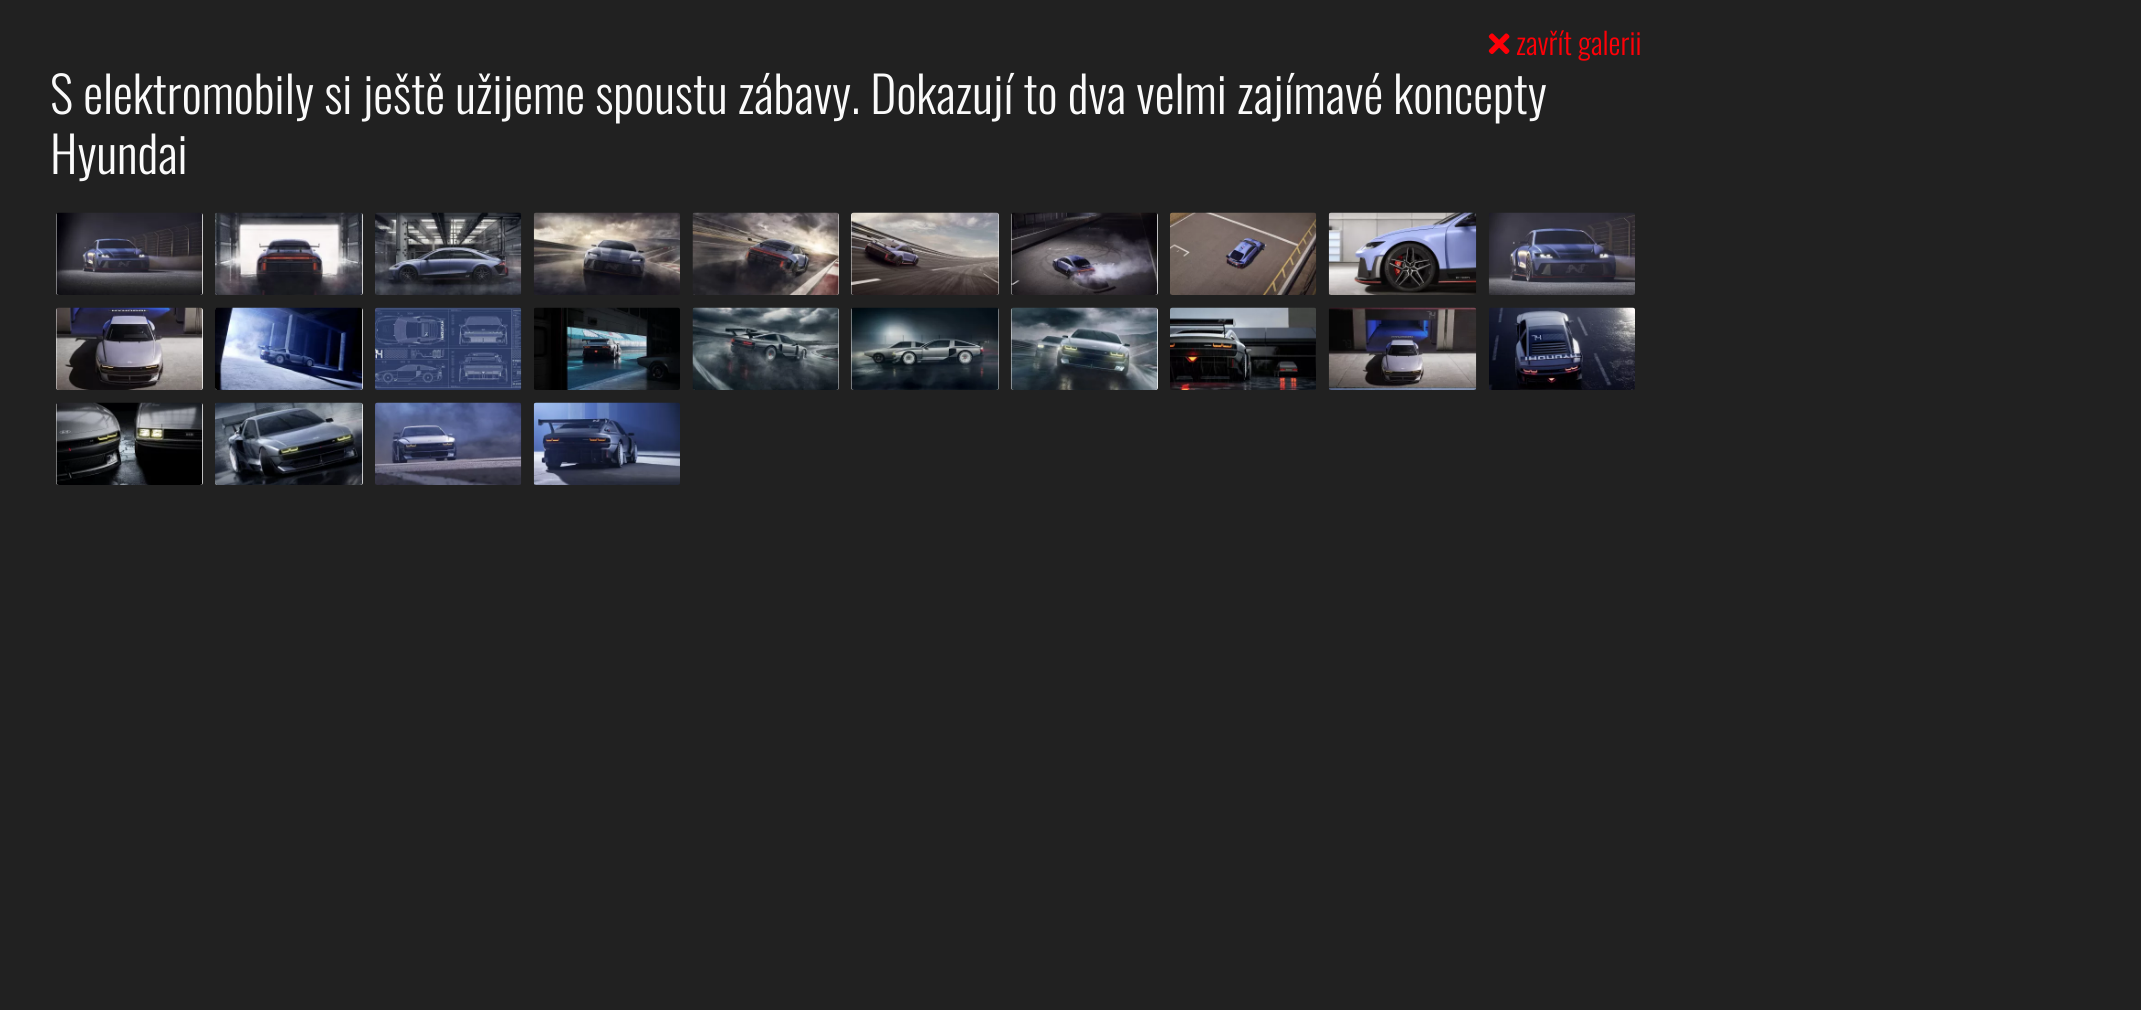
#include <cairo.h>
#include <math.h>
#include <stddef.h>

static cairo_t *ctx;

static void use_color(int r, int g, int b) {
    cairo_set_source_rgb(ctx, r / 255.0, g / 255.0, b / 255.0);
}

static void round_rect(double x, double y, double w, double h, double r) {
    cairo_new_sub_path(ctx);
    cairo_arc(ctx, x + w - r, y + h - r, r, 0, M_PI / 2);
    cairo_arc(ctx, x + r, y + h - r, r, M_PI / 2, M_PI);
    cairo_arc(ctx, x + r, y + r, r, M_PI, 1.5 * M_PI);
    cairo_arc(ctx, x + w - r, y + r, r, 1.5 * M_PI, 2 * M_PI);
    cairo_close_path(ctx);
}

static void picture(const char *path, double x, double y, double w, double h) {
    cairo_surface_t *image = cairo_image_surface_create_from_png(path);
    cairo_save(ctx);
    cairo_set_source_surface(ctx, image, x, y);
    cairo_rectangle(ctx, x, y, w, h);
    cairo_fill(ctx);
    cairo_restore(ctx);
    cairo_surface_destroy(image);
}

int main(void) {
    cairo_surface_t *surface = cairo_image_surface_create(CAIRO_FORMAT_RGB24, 2141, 1010);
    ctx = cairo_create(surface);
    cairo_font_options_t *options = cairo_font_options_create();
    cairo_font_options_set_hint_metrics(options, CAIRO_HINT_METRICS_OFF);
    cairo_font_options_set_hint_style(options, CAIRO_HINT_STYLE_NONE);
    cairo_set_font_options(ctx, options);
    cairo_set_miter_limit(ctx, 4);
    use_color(33, 33, 33);
    cairo_paint(ctx);
    picture("img1.png", 1488, 33, 22, 21);
    cairo_select_font_face(ctx, "Oswald Light", CAIRO_FONT_SLANT_NORMAL, CAIRO_FONT_WEIGHT_NORMAL);
    cairo_set_font_size(ctx, 30);
    use_color(255, 0, 7);
    cairo_move_to(ctx, 1516, 55);
    cairo_show_text(ctx, "zavřít galerii");
    cairo_set_font_size(ctx, 50);
    use_color(250, 250, 250);
    cairo_move_to(ctx, 50, 114);
    cairo_show_text(ctx, "S elektromobily si ještě užijeme spoustu zábavy. Dokazují to dva velmi zajímavé koncepty");
    cairo_move_to(ctx, 50, 174);
    cairo_show_text(ctx, "Hyundai");
    use_color(255, 255, 255);
    round_rect(56, 213, 147, 82, 2.5);
    cairo_fill(ctx);
    picture("img2.png", 56, 212, 147, 83);
    round_rect(215, 213, 148, 82, 2.5);
    cairo_fill(ctx);
    picture("img3.png", 215, 212, 148, 83);
    picture("img4.png", 375, 212, 147, 83);
    picture("img5.png", 533, 212, 147, 83);
    round_rect(693, 213, 146, 82, 2.5);
    cairo_fill(ctx);
    picture("img6.png", 692, 212, 147, 83);
    round_rect(851, 213, 148, 82, 2.5);
    cairo_fill(ctx);
    picture("img7.png", 851, 212, 148, 83);
    round_rect(1011, 213, 147, 82, 2.5);
    cairo_fill(ctx);
    picture("img8.png", 1011, 212, 147, 83);
    picture("img9.png", 1170, 212, 147, 83);
    picture("img10.png", 1328, 212, 149, 83);
    picture("img11.png", 1488, 212, 147, 83);
    round_rect(56, 308, 147, 82, 2.5);
    cairo_fill(ctx);
    picture("img12.png", 56, 307, 147, 83);
    round_rect(215, 308, 148, 82, 2.5);
    cairo_fill(ctx);
    picture("img13.png", 215, 307, 148, 83);
    picture("img14.png", 375, 307, 147, 83);
    picture("img15.png", 534, 307, 146, 83);
    round_rect(693, 308, 146, 82, 2.5);
    cairo_fill(ctx);
    picture("img16.png", 692, 307, 147, 83);
    round_rect(851, 308, 148, 82, 2.5);
    cairo_fill(ctx);
    picture("img17.png", 851, 307, 148, 83);
    round_rect(1011, 308, 147, 82, 2.5);
    cairo_fill(ctx);
    picture("img18.png", 1011, 307, 147, 83);
    picture("img19.png", 1170, 307, 146, 83);
    picture("img20.png", 1328, 307, 149, 83);
    picture("img21.png", 1489, 307, 146, 83);
    round_rect(56, 403, 147, 82, 2.5);
    cairo_fill(ctx);
    picture("img22.png", 56, 402, 147, 83);
    round_rect(215, 403, 148, 82, 2.5);
    cairo_fill(ctx);
    picture("img23.png", 215, 402, 148, 83);
    picture("img24.png", 375, 402, 147, 83);
    picture("img25.png", 533, 402, 147, 83);
    cairo_surface_write_to_png(surface, "result.png");
    cairo_font_options_destroy(options);
    cairo_destroy(ctx);
    cairo_surface_destroy(surface);
    return 0;
}
